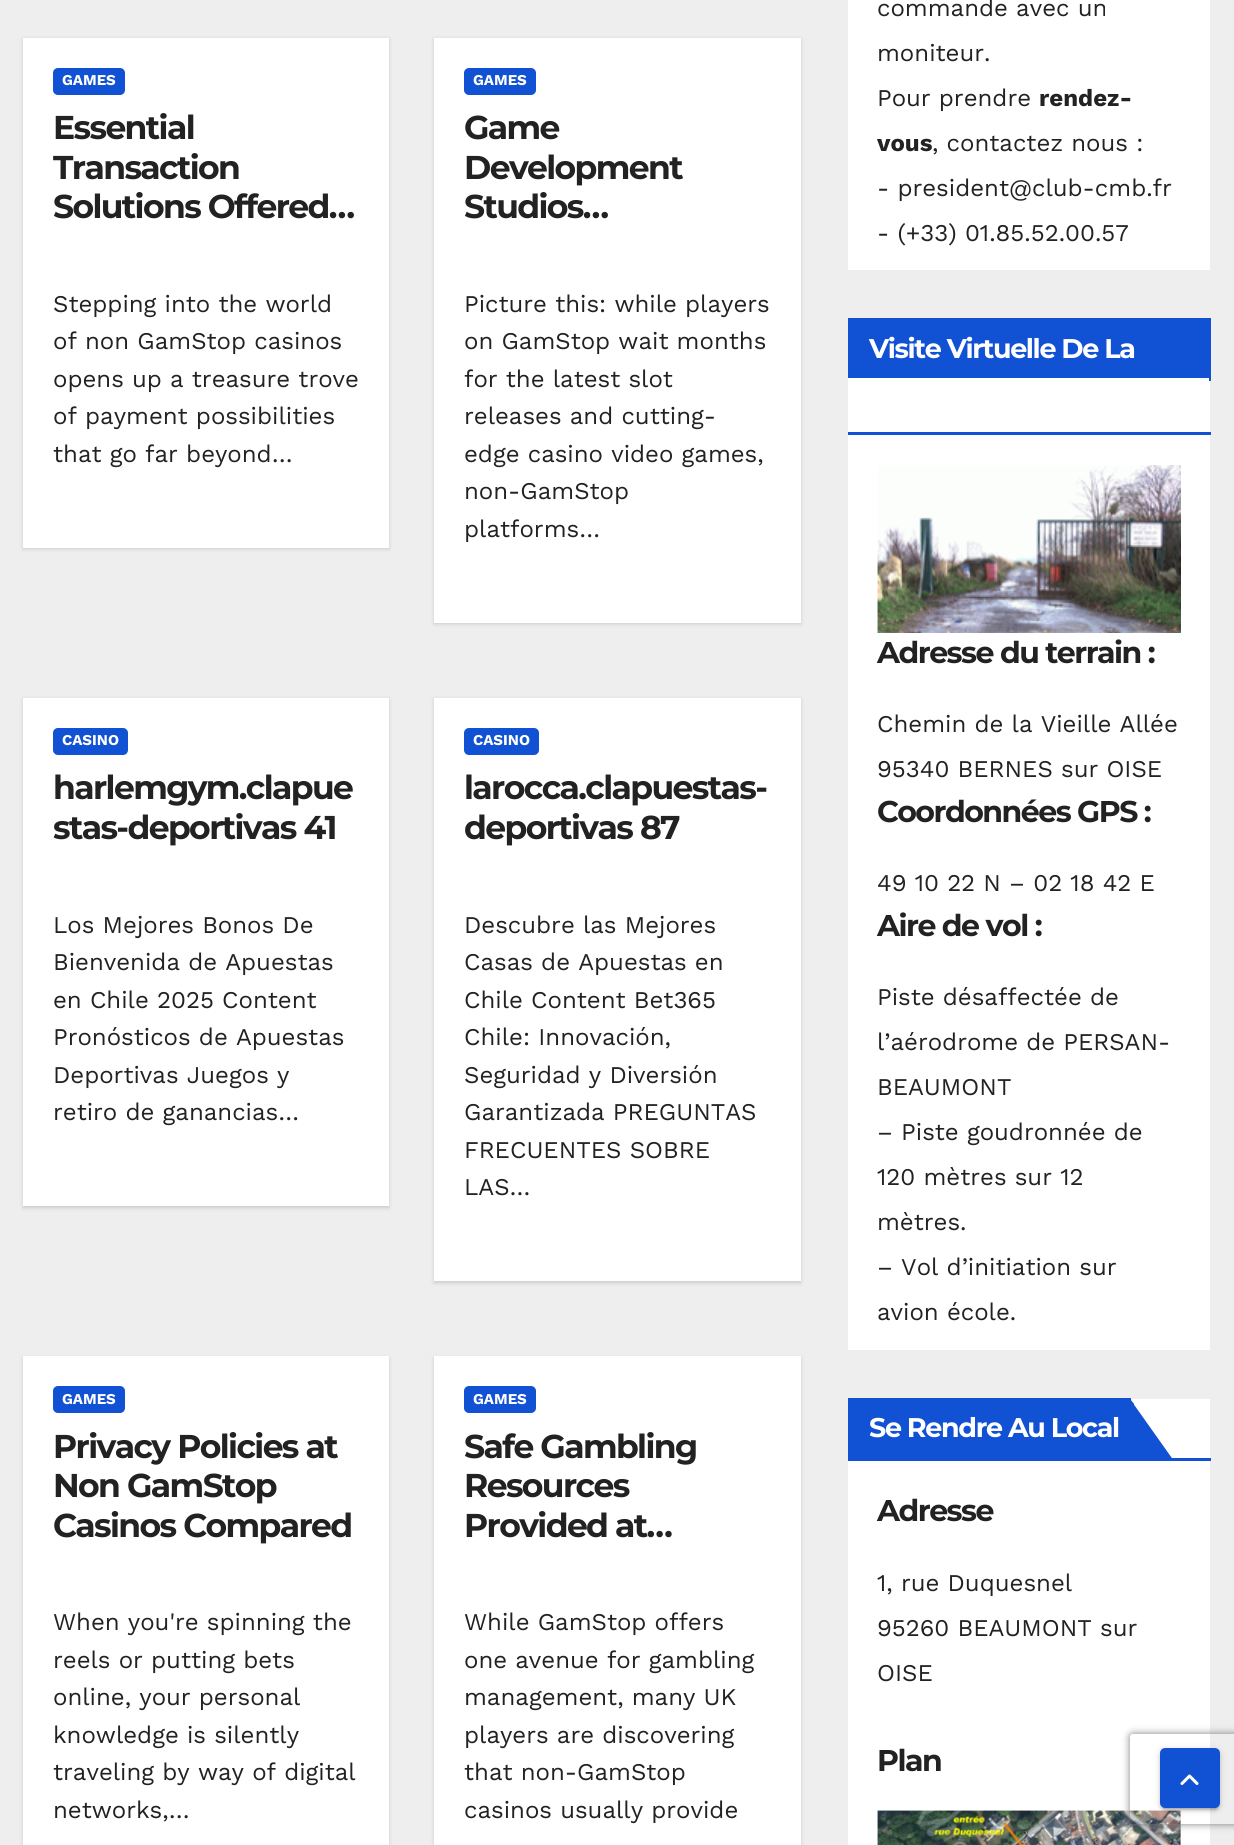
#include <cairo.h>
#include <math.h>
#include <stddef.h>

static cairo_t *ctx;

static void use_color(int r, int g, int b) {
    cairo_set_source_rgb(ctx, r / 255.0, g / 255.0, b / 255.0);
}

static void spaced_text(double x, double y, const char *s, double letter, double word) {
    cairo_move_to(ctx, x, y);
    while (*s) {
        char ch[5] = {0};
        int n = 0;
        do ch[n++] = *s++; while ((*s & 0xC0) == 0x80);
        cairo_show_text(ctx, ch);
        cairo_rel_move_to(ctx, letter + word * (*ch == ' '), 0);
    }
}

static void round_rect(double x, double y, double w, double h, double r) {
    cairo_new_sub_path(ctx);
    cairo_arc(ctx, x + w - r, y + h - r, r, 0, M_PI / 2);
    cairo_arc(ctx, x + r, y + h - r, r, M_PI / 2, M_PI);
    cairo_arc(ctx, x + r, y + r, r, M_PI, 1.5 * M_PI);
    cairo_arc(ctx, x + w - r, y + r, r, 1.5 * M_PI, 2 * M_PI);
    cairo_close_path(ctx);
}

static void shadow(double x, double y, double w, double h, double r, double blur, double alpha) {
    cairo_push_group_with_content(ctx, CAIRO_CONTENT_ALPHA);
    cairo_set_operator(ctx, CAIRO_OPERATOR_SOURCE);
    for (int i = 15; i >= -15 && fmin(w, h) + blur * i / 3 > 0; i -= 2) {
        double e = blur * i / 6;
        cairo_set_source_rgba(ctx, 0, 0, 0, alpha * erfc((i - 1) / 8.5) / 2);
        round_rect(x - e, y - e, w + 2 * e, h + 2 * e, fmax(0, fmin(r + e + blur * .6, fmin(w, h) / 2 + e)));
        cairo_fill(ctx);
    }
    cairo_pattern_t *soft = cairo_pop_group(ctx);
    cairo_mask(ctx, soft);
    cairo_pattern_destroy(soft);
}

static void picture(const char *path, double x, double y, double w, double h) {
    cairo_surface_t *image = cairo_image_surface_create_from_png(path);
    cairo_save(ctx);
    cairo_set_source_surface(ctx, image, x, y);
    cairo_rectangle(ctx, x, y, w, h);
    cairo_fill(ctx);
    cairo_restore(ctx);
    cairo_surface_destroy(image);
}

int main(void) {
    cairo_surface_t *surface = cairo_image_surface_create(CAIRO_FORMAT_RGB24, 1234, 1845);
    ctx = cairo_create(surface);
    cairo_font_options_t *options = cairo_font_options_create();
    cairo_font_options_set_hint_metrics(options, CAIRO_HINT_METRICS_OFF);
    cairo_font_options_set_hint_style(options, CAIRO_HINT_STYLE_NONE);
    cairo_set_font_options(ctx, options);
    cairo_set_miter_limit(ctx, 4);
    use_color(238, 238, 238);
    cairo_paint(ctx);
    use_color(0, 0, 0);
    shadow(23, 39, 366, 510, 0, 2, 0.15);
    use_color(255, 255, 255);
    cairo_rectangle(ctx, 23, 38, 366, 510);
    cairo_fill(ctx);
    use_color(17, 81, 211);
    round_rect(53, 68, 72, 27, 5);
    cairo_fill(ctx);
    cairo_select_font_face(ctx, "Work Sans", CAIRO_FONT_SLANT_NORMAL, CAIRO_FONT_WEIGHT_BOLD);
    cairo_set_font_size(ctx, 15);
    use_color(255, 255, 255);
    cairo_move_to(ctx, 62, 85);
    cairo_show_text(ctx, "GAMES");
    cairo_select_font_face(ctx, "Montserrat", CAIRO_FONT_SLANT_NORMAL, CAIRO_FONT_WEIGHT_BOLD);
    cairo_set_font_size(ctx, 33);
    use_color(34, 34, 34);
    spaced_text(53, 139, "Essential", -1.6, 0);
    cairo_save(ctx);
    cairo_rectangle(ctx, 53, 110, 306, 118);
    cairo_clip(ctx);
    spaced_text(53, 179, "Transaction", -1.6, 0);
    cairo_restore(ctx);
    spaced_text(53, 218, "Solutions Offered…", -1.6, 0);
    cairo_select_font_face(ctx, "Work Sans", CAIRO_FONT_SLANT_NORMAL, CAIRO_FONT_WEIGHT_NORMAL);
    cairo_set_font_size(ctx, 24);
    cairo_move_to(ctx, 53, 312);
    cairo_show_text(ctx, "Stepping into the world");
    cairo_move_to(ctx, 53, 349);
    cairo_show_text(ctx, "of non GamStop casinos");
    cairo_move_to(ctx, 53, 387);
    cairo_show_text(ctx, "opens up a treasure trove");
    cairo_move_to(ctx, 53, 424);
    cairo_show_text(ctx, "of payment possibilities");
    cairo_move_to(ctx, 53, 462);
    cairo_show_text(ctx, "that go far beyond…");
    use_color(0, 0, 0);
    shadow(434, 39, 367, 585, 0, 2, 0.15);
    use_color(255, 255, 255);
    cairo_rectangle(ctx, 434, 38, 367, 585);
    cairo_fill(ctx);
    use_color(17, 81, 211);
    round_rect(464, 68, 72, 27, 5);
    cairo_fill(ctx);
    cairo_select_font_face(ctx, "Work Sans", CAIRO_FONT_SLANT_NORMAL, CAIRO_FONT_WEIGHT_BOLD);
    cairo_set_font_size(ctx, 15);
    use_color(255, 255, 255);
    cairo_move_to(ctx, 473, 85);
    cairo_show_text(ctx, "GAMES");
    cairo_select_font_face(ctx, "Montserrat", CAIRO_FONT_SLANT_NORMAL, CAIRO_FONT_WEIGHT_BOLD);
    cairo_set_font_size(ctx, 33);
    use_color(34, 34, 34);
    spaced_text(464, 139, "Game", -1.6, 0);
    spaced_text(464, 179, "Development", -1.6, 0);
    spaced_text(464, 218, "Studios…", -1.6, 0);
    cairo_select_font_face(ctx, "Work Sans", CAIRO_FONT_SLANT_NORMAL, CAIRO_FONT_WEIGHT_NORMAL);
    cairo_set_font_size(ctx, 24);
    cairo_move_to(ctx, 464, 312);
    cairo_show_text(ctx, "Picture this: while players");
    cairo_move_to(ctx, 464, 349);
    cairo_show_text(ctx, "on GamStop wait months");
    cairo_move_to(ctx, 464, 387);
    cairo_show_text(ctx, "for the latest slot");
    cairo_move_to(ctx, 464, 424);
    cairo_show_text(ctx, "releases and cutting-");
    cairo_move_to(ctx, 464, 462);
    cairo_show_text(ctx, "edge casino video games,");
    cairo_move_to(ctx, 464, 499);
    cairo_show_text(ctx, "non-GamStop");
    cairo_move_to(ctx, 464, 537);
    cairo_show_text(ctx, "platforms…");
    use_color(0, 0, 0);
    shadow(23, 699, 366, 509, 0, 2, 0.15);
    use_color(255, 255, 255);
    cairo_rectangle(ctx, 23, 698, 366, 508);
    cairo_fill(ctx);
    use_color(17, 81, 211);
    round_rect(53, 728, 75, 27, 5);
    cairo_fill(ctx);
    cairo_select_font_face(ctx, "Work Sans", CAIRO_FONT_SLANT_NORMAL, CAIRO_FONT_WEIGHT_BOLD);
    cairo_set_font_size(ctx, 15);
    use_color(255, 255, 255);
    cairo_move_to(ctx, 62, 745);
    cairo_show_text(ctx, "CASINO");
    cairo_select_font_face(ctx, "Montserrat", CAIRO_FONT_SLANT_NORMAL, CAIRO_FONT_WEIGHT_BOLD);
    cairo_set_font_size(ctx, 33);
    use_color(34, 34, 34);
    spaced_text(53, 799, "harlemgym.clapue", -1.6, 0);
    spaced_text(53, 839, "stas-deportivas 41", -1.6, 0);
    cairo_select_font_face(ctx, "Work Sans", CAIRO_FONT_SLANT_NORMAL, CAIRO_FONT_WEIGHT_NORMAL);
    cairo_set_font_size(ctx, 24);
    cairo_move_to(ctx, 53, 933);
    cairo_show_text(ctx, "Los Mejores Bonos De");
    cairo_move_to(ctx, 53, 970);
    cairo_show_text(ctx, "Bienvenida de Apuestas");
    cairo_move_to(ctx, 53, 1008);
    cairo_show_text(ctx, "en Chile 2025 Content");
    cairo_move_to(ctx, 53, 1045);
    cairo_show_text(ctx, "Pronósticos de Apuestas");
    cairo_move_to(ctx, 53, 1083);
    cairo_show_text(ctx, "Deportivas Juegos y");
    cairo_move_to(ctx, 53, 1120);
    cairo_show_text(ctx, "retiro de ganancias…");
    use_color(0, 0, 0);
    shadow(434, 699, 367, 584, 0, 2, 0.15);
    use_color(255, 255, 255);
    cairo_rectangle(ctx, 434, 698, 367, 583);
    cairo_fill(ctx);
    use_color(17, 81, 211);
    round_rect(464, 728, 75, 27, 5);
    cairo_fill(ctx);
    cairo_select_font_face(ctx, "Work Sans", CAIRO_FONT_SLANT_NORMAL, CAIRO_FONT_WEIGHT_BOLD);
    cairo_set_font_size(ctx, 15);
    use_color(255, 255, 255);
    cairo_move_to(ctx, 473, 745);
    cairo_show_text(ctx, "CASINO");
    cairo_select_font_face(ctx, "Montserrat", CAIRO_FONT_SLANT_NORMAL, CAIRO_FONT_WEIGHT_BOLD);
    cairo_set_font_size(ctx, 33);
    use_color(34, 34, 34);
    spaced_text(464, 799, "larocca.clapuestas-", -1.6, 0);
    spaced_text(464, 839, "deportivas 87", -1.6, 0);
    cairo_select_font_face(ctx, "Work Sans", CAIRO_FONT_SLANT_NORMAL, CAIRO_FONT_WEIGHT_NORMAL);
    cairo_set_font_size(ctx, 24);
    cairo_move_to(ctx, 464, 933);
    cairo_show_text(ctx, "Descubre las Mejores");
    cairo_move_to(ctx, 464, 970);
    cairo_show_text(ctx, "Casas de Apuestas en");
    cairo_move_to(ctx, 464, 1008);
    cairo_show_text(ctx, "Chile Content Bet365");
    cairo_move_to(ctx, 464, 1045);
    cairo_show_text(ctx, "Chile: Innovación,");
    cairo_move_to(ctx, 464, 1083);
    cairo_show_text(ctx, "Seguridad y Diversión");
    cairo_move_to(ctx, 464, 1120);
    cairo_show_text(ctx, "Garantizada PREGUNTAS");
    cairo_move_to(ctx, 464, 1158);
    cairo_show_text(ctx, "FRECUENTES SOBRE");
    cairo_move_to(ctx, 464, 1195);
    cairo_show_text(ctx, "LAS…");
    use_color(0, 0, 0);
    shadow(23, 1358, 366, 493, 0, 2, 0.15);
    use_color(255, 255, 255);
    cairo_rectangle(ctx, 23, 1356, 366, 489);
    cairo_fill(ctx);
    use_color(17, 81, 211);
    round_rect(53, 1386, 72, 27, 5);
    cairo_fill(ctx);
    cairo_select_font_face(ctx, "Work Sans", CAIRO_FONT_SLANT_NORMAL, CAIRO_FONT_WEIGHT_BOLD);
    cairo_set_font_size(ctx, 15);
    use_color(255, 255, 255);
    cairo_move_to(ctx, 62, 1404);
    cairo_show_text(ctx, "GAMES");
    cairo_select_font_face(ctx, "Montserrat", CAIRO_FONT_SLANT_NORMAL, CAIRO_FONT_WEIGHT_BOLD);
    cairo_set_font_size(ctx, 33);
    use_color(34, 34, 34);
    spaced_text(53, 1458, "Privacy Policies at", -1.6, 0);
    spaced_text(53, 1497, "Non GamStop", -1.6, 0);
    spaced_text(53, 1537, "Casinos Compared", -1.6, 0);
    cairo_select_font_face(ctx, "Work Sans", CAIRO_FONT_SLANT_NORMAL, CAIRO_FONT_WEIGHT_NORMAL);
    cairo_set_font_size(ctx, 24);
    cairo_move_to(ctx, 53, 1630);
    cairo_show_text(ctx, "When you're spinning the");
    cairo_move_to(ctx, 53, 1668);
    cairo_show_text(ctx, "reels or putting bets");
    cairo_move_to(ctx, 53, 1705);
    cairo_show_text(ctx, "online, your personal");
    cairo_move_to(ctx, 53, 1743);
    cairo_show_text(ctx, "knowledge is silently");
    cairo_move_to(ctx, 53, 1780);
    cairo_show_text(ctx, "traveling by way of digital");
    cairo_move_to(ctx, 53, 1818);
    cairo_show_text(ctx, "networks,…");
    use_color(0, 0, 0);
    shadow(434, 1358, 367, 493, 0, 2, 0.15);
    use_color(255, 255, 255);
    cairo_rectangle(ctx, 434, 1356, 367, 489);
    cairo_fill(ctx);
    use_color(17, 81, 211);
    round_rect(464, 1386, 72, 27, 5);
    cairo_fill(ctx);
    cairo_select_font_face(ctx, "Work Sans", CAIRO_FONT_SLANT_NORMAL, CAIRO_FONT_WEIGHT_BOLD);
    cairo_set_font_size(ctx, 15);
    use_color(255, 255, 255);
    cairo_move_to(ctx, 473, 1404);
    cairo_show_text(ctx, "GAMES");
    cairo_select_font_face(ctx, "Montserrat", CAIRO_FONT_SLANT_NORMAL, CAIRO_FONT_WEIGHT_BOLD);
    cairo_set_font_size(ctx, 33);
    use_color(34, 34, 34);
    spaced_text(464, 1458, "Safe Gambling", -1.6, 0);
    spaced_text(464, 1497, "Resources", -1.6, 0);
    spaced_text(464, 1537, "Provided at…", -1.6, 0);
    cairo_select_font_face(ctx, "Work Sans", CAIRO_FONT_SLANT_NORMAL, CAIRO_FONT_WEIGHT_NORMAL);
    cairo_set_font_size(ctx, 24);
    cairo_move_to(ctx, 464, 1630);
    cairo_show_text(ctx, "While GamStop offers");
    cairo_move_to(ctx, 464, 1668);
    cairo_show_text(ctx, "one avenue for gambling");
    cairo_move_to(ctx, 464, 1705);
    cairo_show_text(ctx, "management, many UK");
    cairo_move_to(ctx, 464, 1743);
    cairo_show_text(ctx, "players are discovering");
    cairo_move_to(ctx, 464, 1780);
    cairo_show_text(ctx, "that non-GamStop");
    cairo_move_to(ctx, 464, 1818);
    cairo_show_text(ctx, "casinos usually provide");
    use_color(255, 255, 255);
    cairo_rectangle(ctx, 848, 0, 362, 270);
    cairo_fill(ctx);
    use_color(34, 34, 34);
    cairo_move_to(ctx, 877, 16);
    cairo_show_text(ctx, "commande avec un");
    cairo_move_to(ctx, 877, 61);
    cairo_show_text(ctx, "moniteur.");
    cairo_move_to(ctx, 877, 106);
    cairo_show_text(ctx, "Pour prendre");
    cairo_select_font_face(ctx, "Work Sans", CAIRO_FONT_SLANT_NORMAL, CAIRO_FONT_WEIGHT_BOLD);
    cairo_move_to(ctx, 1039, 106);
    cairo_show_text(ctx, "rendez-");
    cairo_move_to(ctx, 877, 151);
    cairo_show_text(ctx, "vous");
    cairo_select_font_face(ctx, "Work Sans", CAIRO_FONT_SLANT_NORMAL, CAIRO_FONT_WEIGHT_NORMAL);
    cairo_move_to(ctx, 932, 151);
    cairo_show_text(ctx, ", contactez nous :");
    cairo_move_to(ctx, 877, 196);
    cairo_show_text(ctx, "- president@club-cmb.fr");
    cairo_move_to(ctx, 877, 241);
    cairo_show_text(ctx, "- (+33) 01.85.52.00.57");
    use_color(255, 255, 255);
    cairo_rectangle(ctx, 848, 378, 362, 972);
    cairo_fill(ctx);
    use_color(17, 81, 211);
    cairo_rectangle(ctx, 848, 432, 363, 3);
    cairo_fill(ctx);
    cairo_rectangle(ctx, 848, 318, 363, 60);
    cairo_fill(ctx);
    cairo_select_font_face(ctx, "Montserrat", CAIRO_FONT_SLANT_NORMAL, CAIRO_FONT_WEIGHT_BOLD);
    cairo_set_font_size(ctx, 27);
    use_color(255, 255, 255);
    spaced_text(869, 358, "Visite Virtuelle De La", -1.35, 0);
    cairo_save(ctx);
    cairo_rectangle(ctx, 848, 318, 363, 1032);
    cairo_clip(ctx);
    use_color(17, 81, 211);
    cairo_new_path(ctx);
    cairo_move_to(ctx, 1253, 381);
    cairo_line_to(ctx, 1209, 381);
    cairo_line_to(ctx, 1209, 319);
    cairo_close_path(ctx);
    cairo_fill(ctx);
    cairo_restore(ctx);
    picture("img1.png", 877, 465, 304, 168);
    cairo_set_font_size(ctx, 30);
    use_color(34, 34, 34);
    spaced_text(877, 663, "Adresse du terrain :", -1.5, 0);
    cairo_select_font_face(ctx, "Work Sans", CAIRO_FONT_SLANT_NORMAL, CAIRO_FONT_WEIGHT_NORMAL);
    cairo_set_font_size(ctx, 24);
    cairo_move_to(ctx, 877, 732);
    cairo_show_text(ctx, "Chemin de la Vieille Allée");
    cairo_move_to(ctx, 877, 777);
    cairo_show_text(ctx, "95340 BERNES sur OISE");
    cairo_select_font_face(ctx, "Montserrat", CAIRO_FONT_SLANT_NORMAL, CAIRO_FONT_WEIGHT_BOLD);
    cairo_set_font_size(ctx, 30);
    spaced_text(877, 822, "Coordonnées GPS :", -1.5, 0);
    cairo_select_font_face(ctx, "Work Sans", CAIRO_FONT_SLANT_NORMAL, CAIRO_FONT_WEIGHT_NORMAL);
    cairo_set_font_size(ctx, 24);
    cairo_move_to(ctx, 877, 891);
    cairo_show_text(ctx, "49 10 22 N – 02 18 42 E");
    cairo_select_font_face(ctx, "Montserrat", CAIRO_FONT_SLANT_NORMAL, CAIRO_FONT_WEIGHT_BOLD);
    cairo_set_font_size(ctx, 30);
    spaced_text(877, 936, "Aire de vol :", -1.5, 0);
    cairo_select_font_face(ctx, "Work Sans", CAIRO_FONT_SLANT_NORMAL, CAIRO_FONT_WEIGHT_NORMAL);
    cairo_set_font_size(ctx, 24);
    cairo_move_to(ctx, 877, 1005);
    cairo_show_text(ctx, "Piste désaffectée de");
    cairo_move_to(ctx, 877, 1050);
    cairo_show_text(ctx, "l’aérodrome de PERSAN-");
    cairo_move_to(ctx, 877, 1095);
    cairo_show_text(ctx, "BEAUMONT");
    cairo_move_to(ctx, 877, 1140);
    cairo_show_text(ctx, "– Piste goudronnée de");
    cairo_move_to(ctx, 877, 1185);
    cairo_show_text(ctx, "120 mètres sur 12");
    cairo_move_to(ctx, 877, 1230);
    cairo_show_text(ctx, "mètres.");
    cairo_move_to(ctx, 877, 1275);
    cairo_show_text(ctx, "– Vol d’initiation sur");
    cairo_move_to(ctx, 877, 1320);
    cairo_show_text(ctx, "avion école.");
    use_color(255, 255, 255);
    cairo_rectangle(ctx, 848, 1399, 362, 446);
    cairo_fill(ctx);
    use_color(17, 81, 211);
    cairo_rectangle(ctx, 848, 1458, 363, 3);
    cairo_fill(ctx);
    cairo_rectangle(ctx, 848, 1398, 283, 60);
    cairo_fill(ctx);
    cairo_select_font_face(ctx, "Montserrat", CAIRO_FONT_SLANT_NORMAL, CAIRO_FONT_WEIGHT_BOLD);
    cairo_set_font_size(ctx, 27);
    use_color(255, 255, 255);
    spaced_text(869, 1437, "Se Rendre Au Local", -1.35, 0);
    use_color(17, 81, 211);
    cairo_new_path(ctx);
    cairo_move_to(ctx, 1174, 1461);
    cairo_line_to(ctx, 1130, 1461);
    cairo_line_to(ctx, 1130, 1399);
    cairo_close_path(ctx);
    cairo_fill(ctx);
    cairo_new_path(ctx);
    cairo_move_to(ctx, 1130, 1461);
    cairo_line_to(ctx, 1134, 1456);
    cairo_line_to(ctx, 1134, 1404);
    cairo_line_to(ctx, 1130, 1399);
    cairo_close_path(ctx);
    cairo_fill(ctx);
    cairo_set_font_size(ctx, 30);
    use_color(34, 34, 34);
    spaced_text(877, 1521, "Adresse", -1.5, 0);
    cairo_select_font_face(ctx, "Work Sans", CAIRO_FONT_SLANT_NORMAL, CAIRO_FONT_WEIGHT_NORMAL);
    cairo_set_font_size(ctx, 24);
    cairo_move_to(ctx, 877, 1591);
    cairo_show_text(ctx, "1, rue Duquesnel");
    cairo_move_to(ctx, 877, 1636);
    cairo_show_text(ctx, "95260 BEAUMONT sur");
    cairo_move_to(ctx, 877, 1681);
    cairo_show_text(ctx, "OISE");
    cairo_select_font_face(ctx, "Montserrat", CAIRO_FONT_SLANT_NORMAL, CAIRO_FONT_WEIGHT_BOLD);
    cairo_set_font_size(ctx, 30);
    spaced_text(877, 1771, "Plan", -1.5, 0);
    picture("img2.png", 877, 1810, 304, 35);
    cairo_save(ctx);
    cairo_set_fill_rule(ctx, CAIRO_FILL_RULE_EVEN_ODD);
    cairo_new_path(ctx);
    cairo_move_to(ctx, 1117, 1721);
    cairo_line_to(ctx, 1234, 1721);
    cairo_line_to(ctx, 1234, 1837);
    cairo_line_to(ctx, 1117, 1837);
    cairo_close_path(ctx);
    cairo_move_to(ctx, 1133, 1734);
    cairo_line_to(ctx, 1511, 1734);
    cairo_curve_to(ctx, 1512.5, 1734, 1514, 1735.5, 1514, 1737);
    cairo_line_to(ctx, 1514, 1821);
    cairo_curve_to(ctx, 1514, 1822.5, 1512.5, 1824, 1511, 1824);
    cairo_line_to(ctx, 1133, 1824);
    cairo_curve_to(ctx, 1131.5, 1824, 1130, 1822.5, 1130, 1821);
    cairo_line_to(ctx, 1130, 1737);
    cairo_curve_to(ctx, 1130, 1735.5, 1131.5, 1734, 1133, 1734);
    cairo_close_path(ctx);
    cairo_clip(ctx);
    use_color(128, 128, 128);
    shadow(1130, 1734, 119, 90, 3, 4, 1);
    cairo_restore(ctx);
    use_color(0, 0, 0);
    shadow(1160, 1749, 60, 60, 5, 4, 0.12);
    shadow(1163, 1755, 54, 54, 1.5, 1, 0.2);
    shadow(1160, 1751, 60, 60, 5, 1.5, 0.14);
    use_color(17, 81, 211);
    round_rect(1161.5, 1749.5, 57, 57, 3.5);
    cairo_fill_preserve(ctx);
    cairo_set_line_width(ctx, 3);
    cairo_stroke(ctx);
    picture("img3.png", 1180, 1774, 19, 11);
    cairo_surface_write_to_png(surface, "result.png");
    cairo_font_options_destroy(options);
    cairo_destroy(ctx);
    cairo_surface_destroy(surface);
    return 0;
}
